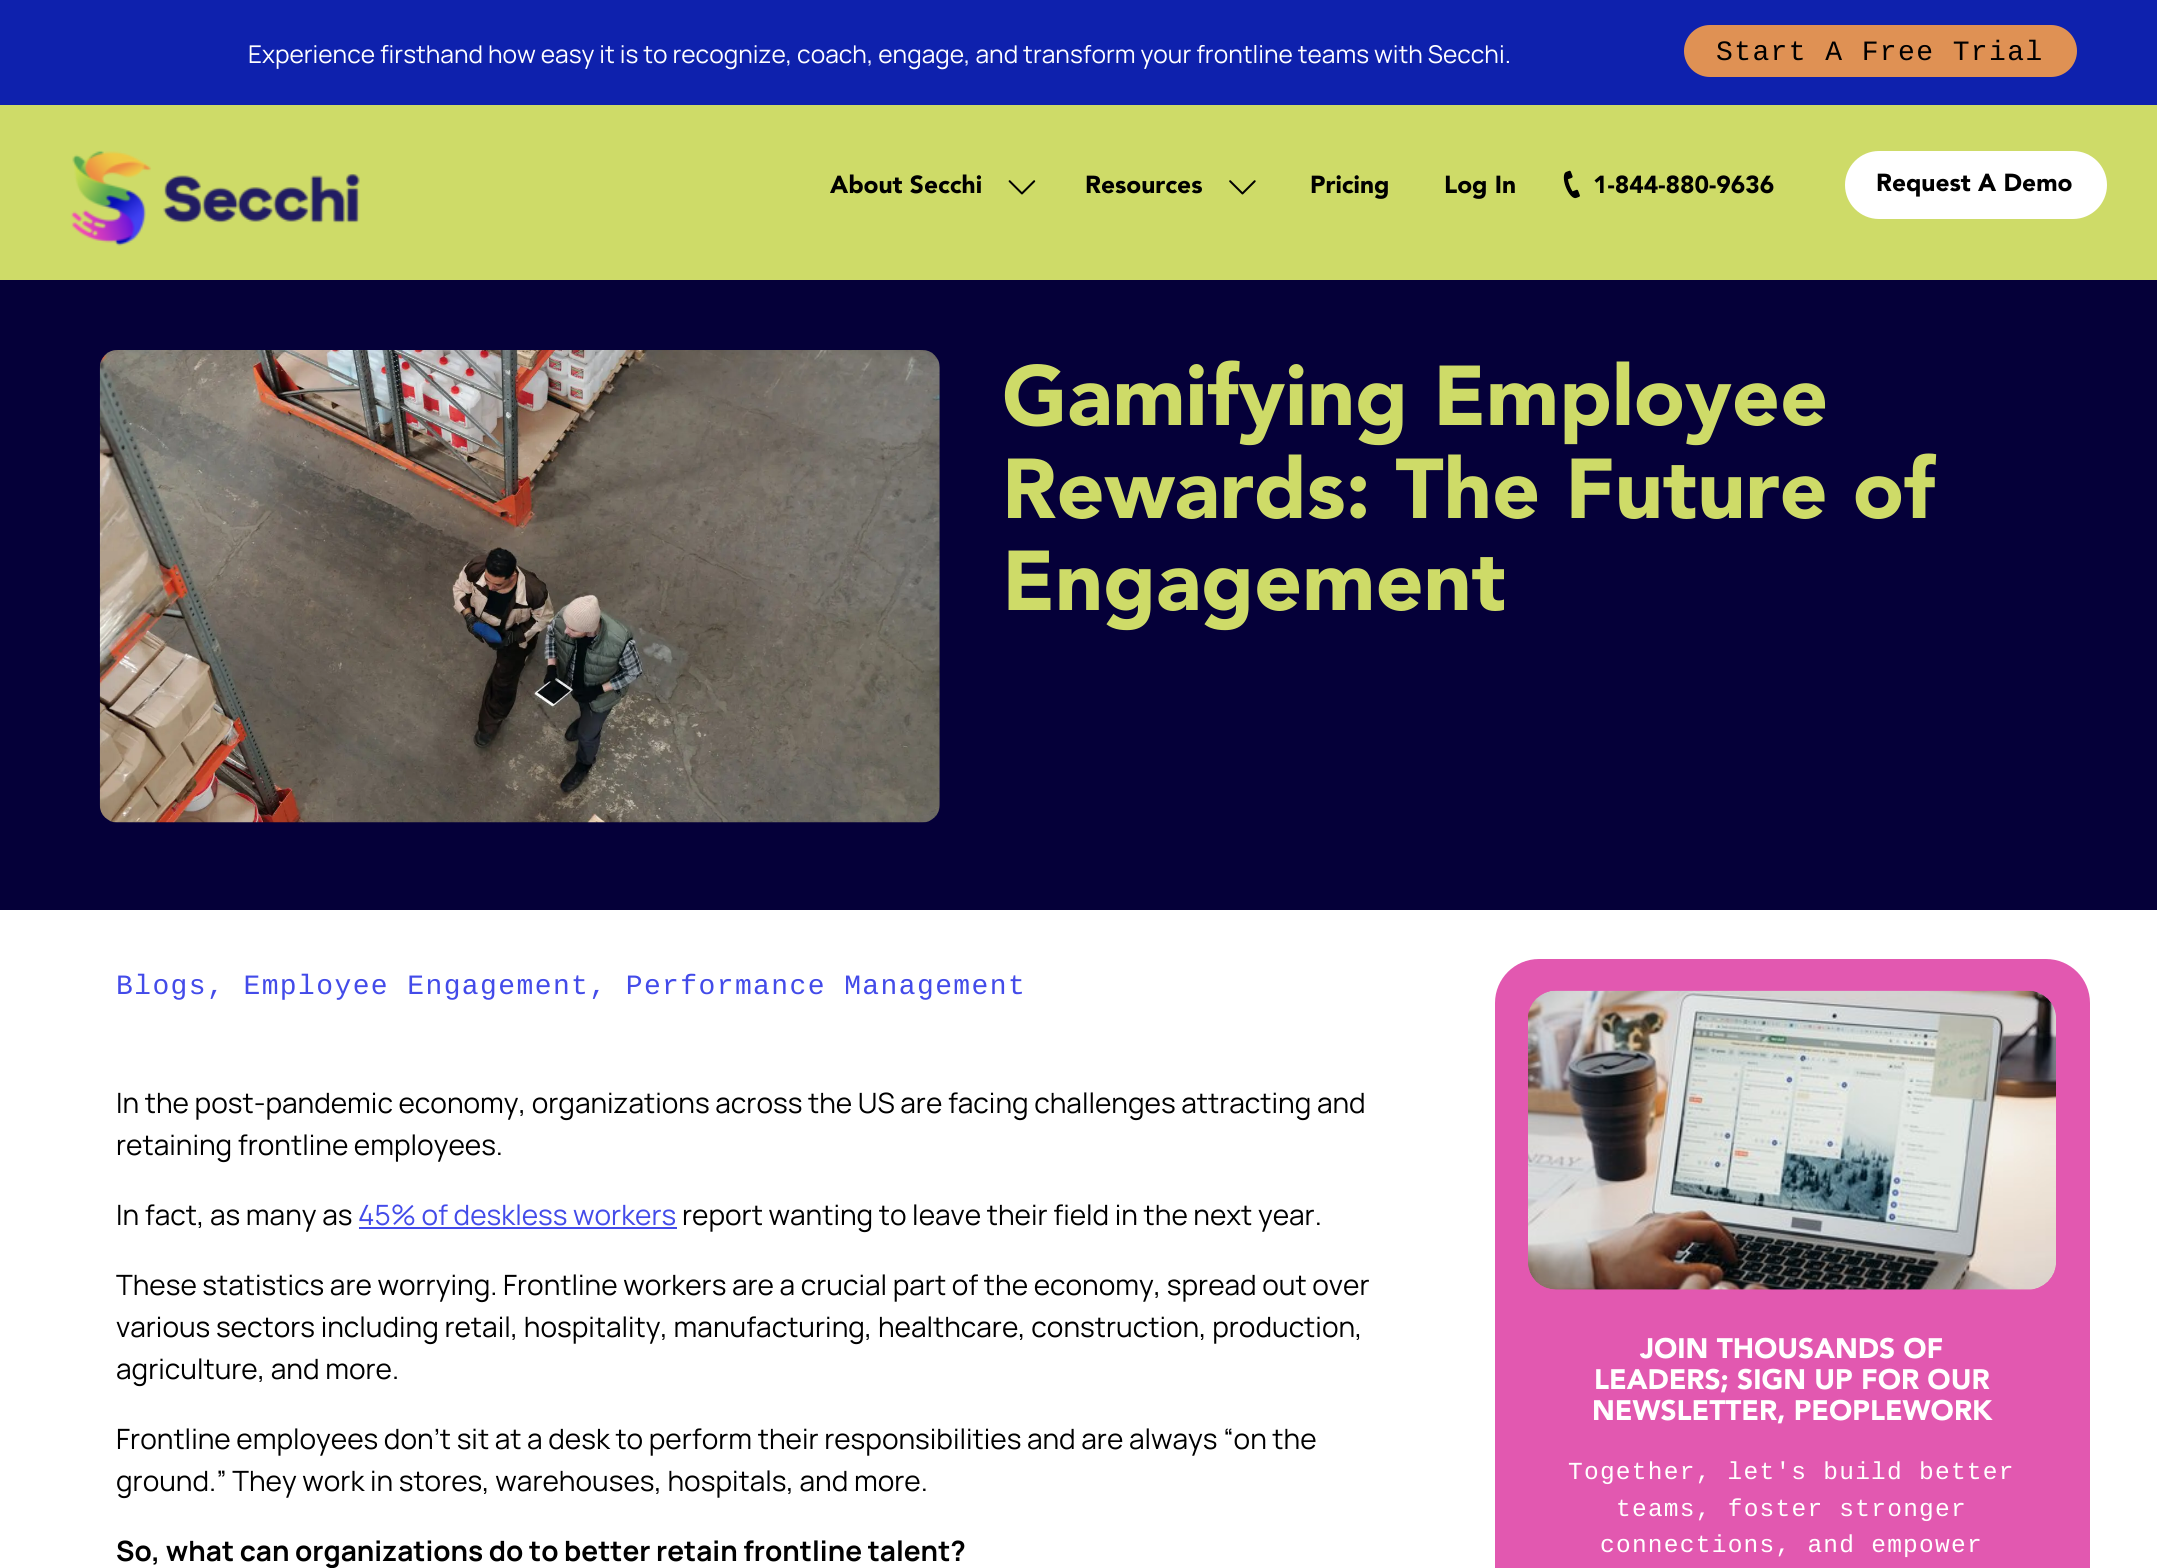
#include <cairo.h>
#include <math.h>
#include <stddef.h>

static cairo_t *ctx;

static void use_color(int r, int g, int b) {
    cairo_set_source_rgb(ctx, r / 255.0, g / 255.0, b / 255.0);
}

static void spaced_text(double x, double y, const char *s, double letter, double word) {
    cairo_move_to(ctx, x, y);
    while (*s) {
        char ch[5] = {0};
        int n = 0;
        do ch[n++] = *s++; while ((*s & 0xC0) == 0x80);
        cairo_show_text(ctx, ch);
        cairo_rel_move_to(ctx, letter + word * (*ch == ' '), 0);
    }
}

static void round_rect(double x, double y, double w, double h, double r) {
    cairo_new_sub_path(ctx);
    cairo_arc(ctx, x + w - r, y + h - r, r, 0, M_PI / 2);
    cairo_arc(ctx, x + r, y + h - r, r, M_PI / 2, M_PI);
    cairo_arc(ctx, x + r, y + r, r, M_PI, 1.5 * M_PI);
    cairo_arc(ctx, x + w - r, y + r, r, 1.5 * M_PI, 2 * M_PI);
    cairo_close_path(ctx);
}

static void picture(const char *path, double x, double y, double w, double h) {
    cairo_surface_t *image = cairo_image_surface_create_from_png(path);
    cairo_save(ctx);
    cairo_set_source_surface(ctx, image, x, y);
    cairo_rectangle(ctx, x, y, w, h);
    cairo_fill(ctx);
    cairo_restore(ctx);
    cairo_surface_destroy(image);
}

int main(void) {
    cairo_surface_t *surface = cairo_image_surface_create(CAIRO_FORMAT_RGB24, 2157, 1568);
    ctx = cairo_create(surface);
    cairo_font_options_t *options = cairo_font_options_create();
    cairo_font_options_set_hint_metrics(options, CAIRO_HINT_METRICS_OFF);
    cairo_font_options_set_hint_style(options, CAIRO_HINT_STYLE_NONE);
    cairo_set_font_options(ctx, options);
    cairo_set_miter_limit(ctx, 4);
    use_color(206, 219, 104);
    cairo_paint(ctx);
    use_color(14, 33, 173);
    cairo_rectangle(ctx, 0, 0, 2157, 105);
    cairo_fill(ctx);
    use_color(223, 145, 84);
    round_rect(1684, 25, 393, 52, 26);
    cairo_fill(ctx);
    cairo_select_font_face(ctx, "Manrope", CAIRO_FONT_SLANT_NORMAL, CAIRO_FONT_WEIGHT_NORMAL);
    cairo_set_font_size(ctx, 24.5);
    use_color(255, 255, 255);
    cairo_move_to(ctx, 248, 63);
    cairo_show_text(ctx, "Experience firsthand how easy it is to recognize, coach, engage, and transform your frontline teams with Secchi.");
    cairo_select_font_face(ctx, "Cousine", CAIRO_FONT_SLANT_NORMAL, CAIRO_FONT_WEIGHT_NORMAL);
    cairo_set_font_size(ctx, 28);
    use_color(0, 0, 0);
    spaced_text(1716, 60, "Start A Free Trial", 1.4, 0);
    picture("img1.png", 71, 150, 289, 96);
    picture("img2.png", 1563, 170, 17, 29);
    use_color(255, 255, 255);
    round_rect(1845, 151, 262, 68, 34);
    cairo_fill(ctx);
    cairo_select_font_face(ctx, "Avenir Black", CAIRO_FONT_SLANT_NORMAL, CAIRO_FONT_WEIGHT_NORMAL);
    cairo_set_font_size(ctx, 24.5);
    use_color(0, 0, 0);
    cairo_move_to(ctx, 830, 193);
    cairo_show_text(ctx, "About Secchi");
    picture("img3.png", 1008, 180, 28, 15);
    cairo_move_to(ctx, 1085, 193);
    cairo_show_text(ctx, "Resources");
    picture("img4.png", 1229, 180, 27, 15);
    cairo_move_to(ctx, 1310, 193);
    cairo_show_text(ctx, "Pricing");
    cairo_move_to(ctx, 1444, 193);
    cairo_show_text(ctx, "Log In");
    cairo_move_to(ctx, 1593, 193);
    cairo_show_text(ctx, "1-844-880-9636");
    cairo_move_to(ctx, 1876, 191);
    cairo_show_text(ctx, "Request A Demo");
    use_color(5, 0, 57);
    cairo_rectangle(ctx, 0, 280, 2157, 630);
    cairo_fill(ctx);
    picture("img5.png", 99, 350, 841, 473);
    cairo_set_font_size(ctx, 84);
    use_color(206, 219, 104);
    cairo_move_to(ctx, 1002, 425);
    cairo_show_text(ctx, "Gamifying Employee");
    cairo_move_to(ctx, 1002, 518);
    cairo_show_text(ctx, "Rewards: The Future of");
    cairo_move_to(ctx, 1002, 610);
    cairo_show_text(ctx, "Engagement");
    use_color(255, 255, 255);
    cairo_rectangle(ctx, 0, 910, 2157, 658);
    cairo_fill(ctx);
    cairo_select_font_face(ctx, "Cousine", CAIRO_FONT_SLANT_NORMAL, CAIRO_FONT_WEIGHT_NORMAL);
    cairo_set_font_size(ctx, 28);
    use_color(67, 75, 233);
    spaced_text(116, 994, "Blogs, Employee Engagement, Performance Management", 1.4, 0);
    cairo_select_font_face(ctx, "Manrope", CAIRO_FONT_SLANT_NORMAL, CAIRO_FONT_WEIGHT_NORMAL);
    use_color(0, 0, 0);
    cairo_move_to(ctx, 116, 1113);
    cairo_show_text(ctx, "In the post-pandemic economy, organizations across the US are facing challenges attracting and");
    cairo_move_to(ctx, 116, 1155);
    cairo_show_text(ctx, "retaining frontline employees.");
    cairo_move_to(ctx, 116, 1225);
    cairo_show_text(ctx, "In fact, as many as");
    use_color(67, 75, 233);
    cairo_move_to(ctx, 358, 1225);
    cairo_show_text(ctx, "45% of deskless workers");
    cairo_rectangle(ctx, 359, 1227, 318, 2);
    cairo_fill(ctx);
    use_color(0, 0, 0);
    cairo_move_to(ctx, 682, 1225);
    cairo_show_text(ctx, "report wanting to leave their field in the next year.");
    cairo_move_to(ctx, 116, 1295);
    cairo_show_text(ctx, "These statistics are worrying. Frontline workers are a crucial part of the economy, spread out over");
    cairo_move_to(ctx, 116, 1337);
    cairo_show_text(ctx, "various sectors including retail, hospitality, manufacturing, healthcare, construction, production,");
    cairo_move_to(ctx, 116, 1379);
    cairo_show_text(ctx, "agriculture, and more.");
    cairo_move_to(ctx, 116, 1449);
    cairo_show_text(ctx, "Frontline employees don’t sit at a desk to perform their responsibilities and are always “on the");
    cairo_move_to(ctx, 116, 1491);
    cairo_show_text(ctx, "ground.” They work in stores, warehouses, hospitals, and more.");
    cairo_select_font_face(ctx, "Manrope", CAIRO_FONT_SLANT_NORMAL, CAIRO_FONT_WEIGHT_BOLD);
    cairo_move_to(ctx, 116, 1561);
    cairo_show_text(ctx, "So, what can organizations do to better retain frontline talent?");
    use_color(226, 88, 176);
    round_rect(1495, 959, 595, 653, 44);
    cairo_fill(ctx);
    picture("img6.png", 1528, 990, 528, 300);
    cairo_select_font_face(ctx, "Avenir Black", CAIRO_FONT_SLANT_NORMAL, CAIRO_FONT_WEIGHT_NORMAL);
    use_color(255, 255, 255);
    cairo_move_to(ctx, 1640, 1358);
    cairo_show_text(ctx, "JOIN THOUSANDS OF");
    cairo_move_to(ctx, 1594, 1389);
    cairo_show_text(ctx, "LEADERS; SIGN UP FOR OUR");
    cairo_move_to(ctx, 1592, 1420);
    cairo_show_text(ctx, "NEWSLETTER, PEOPLEWORK");
    cairo_select_font_face(ctx, "Cousine", CAIRO_FONT_SLANT_NORMAL, CAIRO_FONT_WEIGHT_NORMAL);
    cairo_set_font_size(ctx, 24.5);
    spaced_text(1568, 1479, "Together, let's build better", 1.25, 0);
    spaced_text(1616, 1516, "teams, foster stronger", 1.25, 0);
    spaced_text(1600, 1552, "connections, and empower", 1.25, 0);
    cairo_surface_write_to_png(surface, "result.png");
    cairo_font_options_destroy(options);
    cairo_destroy(ctx);
    cairo_surface_destroy(surface);
    return 0;
}
